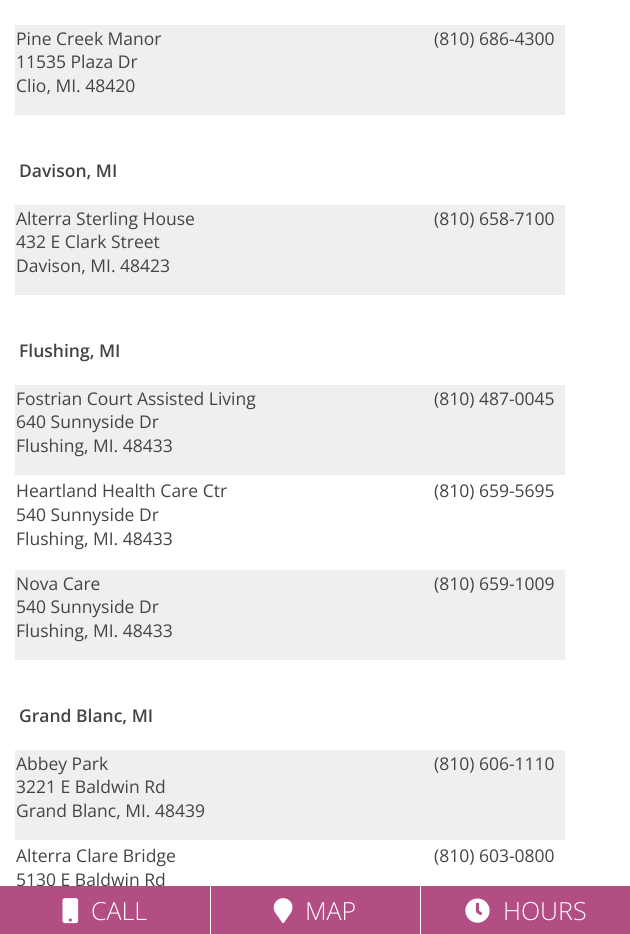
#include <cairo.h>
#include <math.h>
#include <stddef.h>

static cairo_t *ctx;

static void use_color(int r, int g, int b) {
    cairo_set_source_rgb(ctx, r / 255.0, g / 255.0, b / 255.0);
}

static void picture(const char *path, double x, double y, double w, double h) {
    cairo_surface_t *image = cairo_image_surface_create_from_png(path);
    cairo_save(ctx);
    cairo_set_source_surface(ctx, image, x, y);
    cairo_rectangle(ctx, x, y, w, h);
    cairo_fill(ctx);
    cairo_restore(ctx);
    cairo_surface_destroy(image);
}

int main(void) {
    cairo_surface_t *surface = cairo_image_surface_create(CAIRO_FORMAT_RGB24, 630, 934);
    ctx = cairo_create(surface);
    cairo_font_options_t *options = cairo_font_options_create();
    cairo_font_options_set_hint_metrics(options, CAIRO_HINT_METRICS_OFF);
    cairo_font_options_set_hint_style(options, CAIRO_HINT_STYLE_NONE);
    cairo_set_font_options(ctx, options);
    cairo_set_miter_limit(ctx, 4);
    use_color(255, 255, 255);
    cairo_paint(ctx);
    use_color(239, 239, 239);
    cairo_rectangle(ctx, 15, 25, 550, 90);
    cairo_fill(ctx);
    cairo_select_font_face(ctx, "Open Sans", CAIRO_FONT_SLANT_NORMAL, CAIRO_FONT_WEIGHT_NORMAL);
    cairo_set_font_size(ctx, 17.5);
    use_color(68, 68, 68);
    cairo_move_to(ctx, 16, 45);
    cairo_show_text(ctx, "Pine Creek Manor");
    cairo_move_to(ctx, 16, 68);
    cairo_show_text(ctx, "11535 Plaza Dr");
    cairo_move_to(ctx, 16, 92);
    cairo_show_text(ctx, "Clio, MI. 48420");
    cairo_move_to(ctx, 434, 45);
    cairo_show_text(ctx, "(810) 686-4300");
    cairo_select_font_face(ctx, "Open Sans SemiBold", CAIRO_FONT_SLANT_NORMAL, CAIRO_FONT_WEIGHT_NORMAL);
    cairo_move_to(ctx, 19, 177);
    cairo_show_text(ctx, "Davison, MI");
    use_color(239, 239, 239);
    cairo_rectangle(ctx, 15, 205, 550, 90);
    cairo_fill(ctx);
    cairo_select_font_face(ctx, "Open Sans", CAIRO_FONT_SLANT_NORMAL, CAIRO_FONT_WEIGHT_NORMAL);
    use_color(68, 68, 68);
    cairo_move_to(ctx, 16, 225);
    cairo_show_text(ctx, "Alterra Sterling House");
    cairo_move_to(ctx, 16, 248);
    cairo_show_text(ctx, "432 E Clark Street");
    cairo_move_to(ctx, 16, 272);
    cairo_show_text(ctx, "Davison, MI. 48423");
    cairo_move_to(ctx, 434, 225);
    cairo_show_text(ctx, "(810) 658-7100");
    cairo_select_font_face(ctx, "Open Sans SemiBold", CAIRO_FONT_SLANT_NORMAL, CAIRO_FONT_WEIGHT_NORMAL);
    cairo_move_to(ctx, 19, 357);
    cairo_show_text(ctx, "Flushing, MI");
    use_color(239, 239, 239);
    cairo_rectangle(ctx, 15, 385, 550, 90);
    cairo_fill(ctx);
    cairo_select_font_face(ctx, "Open Sans", CAIRO_FONT_SLANT_NORMAL, CAIRO_FONT_WEIGHT_NORMAL);
    use_color(68, 68, 68);
    cairo_move_to(ctx, 16, 405);
    cairo_show_text(ctx, "Fostrian Court Assisted Living");
    cairo_move_to(ctx, 16, 428);
    cairo_show_text(ctx, "640 Sunnyside Dr");
    cairo_move_to(ctx, 16, 452);
    cairo_show_text(ctx, "Flushing, MI. 48433");
    cairo_move_to(ctx, 434, 405);
    cairo_show_text(ctx, "(810) 487-0045");
    cairo_move_to(ctx, 16, 497);
    cairo_show_text(ctx, "Heartland Health Care Ctr");
    cairo_move_to(ctx, 16, 521);
    cairo_show_text(ctx, "540 Sunnyside Dr");
    cairo_move_to(ctx, 16, 545);
    cairo_show_text(ctx, "Flushing, MI. 48433");
    cairo_move_to(ctx, 434, 497);
    cairo_show_text(ctx, "(810) 659-5695");
    use_color(239, 239, 239);
    cairo_rectangle(ctx, 15, 570, 550, 90);
    cairo_fill(ctx);
    use_color(68, 68, 68);
    cairo_move_to(ctx, 16, 590);
    cairo_show_text(ctx, "Nova Care");
    cairo_move_to(ctx, 16, 613);
    cairo_show_text(ctx, "540 Sunnyside Dr");
    cairo_move_to(ctx, 16, 637);
    cairo_show_text(ctx, "Flushing, MI. 48433");
    cairo_move_to(ctx, 434, 590);
    cairo_show_text(ctx, "(810) 659-1009");
    cairo_select_font_face(ctx, "Open Sans SemiBold", CAIRO_FONT_SLANT_NORMAL, CAIRO_FONT_WEIGHT_NORMAL);
    cairo_move_to(ctx, 19, 722);
    cairo_show_text(ctx, "Grand Blanc, MI");
    use_color(239, 239, 239);
    cairo_rectangle(ctx, 15, 750, 550, 90);
    cairo_fill(ctx);
    cairo_select_font_face(ctx, "Open Sans", CAIRO_FONT_SLANT_NORMAL, CAIRO_FONT_WEIGHT_NORMAL);
    use_color(68, 68, 68);
    cairo_move_to(ctx, 16, 770);
    cairo_show_text(ctx, "Abbey Park");
    cairo_move_to(ctx, 16, 793);
    cairo_show_text(ctx, "3221 E Baldwin Rd");
    cairo_move_to(ctx, 16, 817);
    cairo_show_text(ctx, "Grand Blanc, MI. 48439");
    cairo_move_to(ctx, 434, 770);
    cairo_show_text(ctx, "(810) 606-1110");
    cairo_move_to(ctx, 16, 862);
    cairo_show_text(ctx, "Alterra Clare Bridge");
    cairo_move_to(ctx, 16, 886);
    cairo_show_text(ctx, "5130 E Baldwin Rd");
    cairo_move_to(ctx, 434, 862);
    cairo_show_text(ctx, "(810) 603-0800");
    use_color(178, 78, 132);
    cairo_rectangle(ctx, 0, 886, 210, 48);
    cairo_fill(ctx);
    picture("img1.png", 62, 898, 17, 26);
    cairo_select_font_face(ctx, "Open Sans Light", CAIRO_FONT_SLANT_NORMAL, CAIRO_FONT_WEIGHT_NORMAL);
    cairo_set_font_size(ctx, 25);
    use_color(255, 255, 255);
    cairo_move_to(ctx, 91, 920);
    cairo_show_text(ctx, "CALL");
    use_color(178, 78, 132);
    cairo_rectangle(ctx, 211, 886, 209, 48);
    cairo_fill(ctx);
    picture("img2.png", 273, 898, 20, 26);
    use_color(255, 255, 255);
    cairo_move_to(ctx, 305, 920);
    cairo_show_text(ctx, "MAP");
    use_color(178, 78, 132);
    cairo_rectangle(ctx, 421, 886, 209, 48);
    cairo_fill(ctx);
    picture("img3.png", 465, 898, 25, 25);
    use_color(255, 255, 255);
    cairo_move_to(ctx, 503, 920);
    cairo_show_text(ctx, "HOURS");
    cairo_surface_write_to_png(surface, "result.png");
    cairo_font_options_destroy(options);
    cairo_destroy(ctx);
    cairo_surface_destroy(surface);
    return 0;
}
